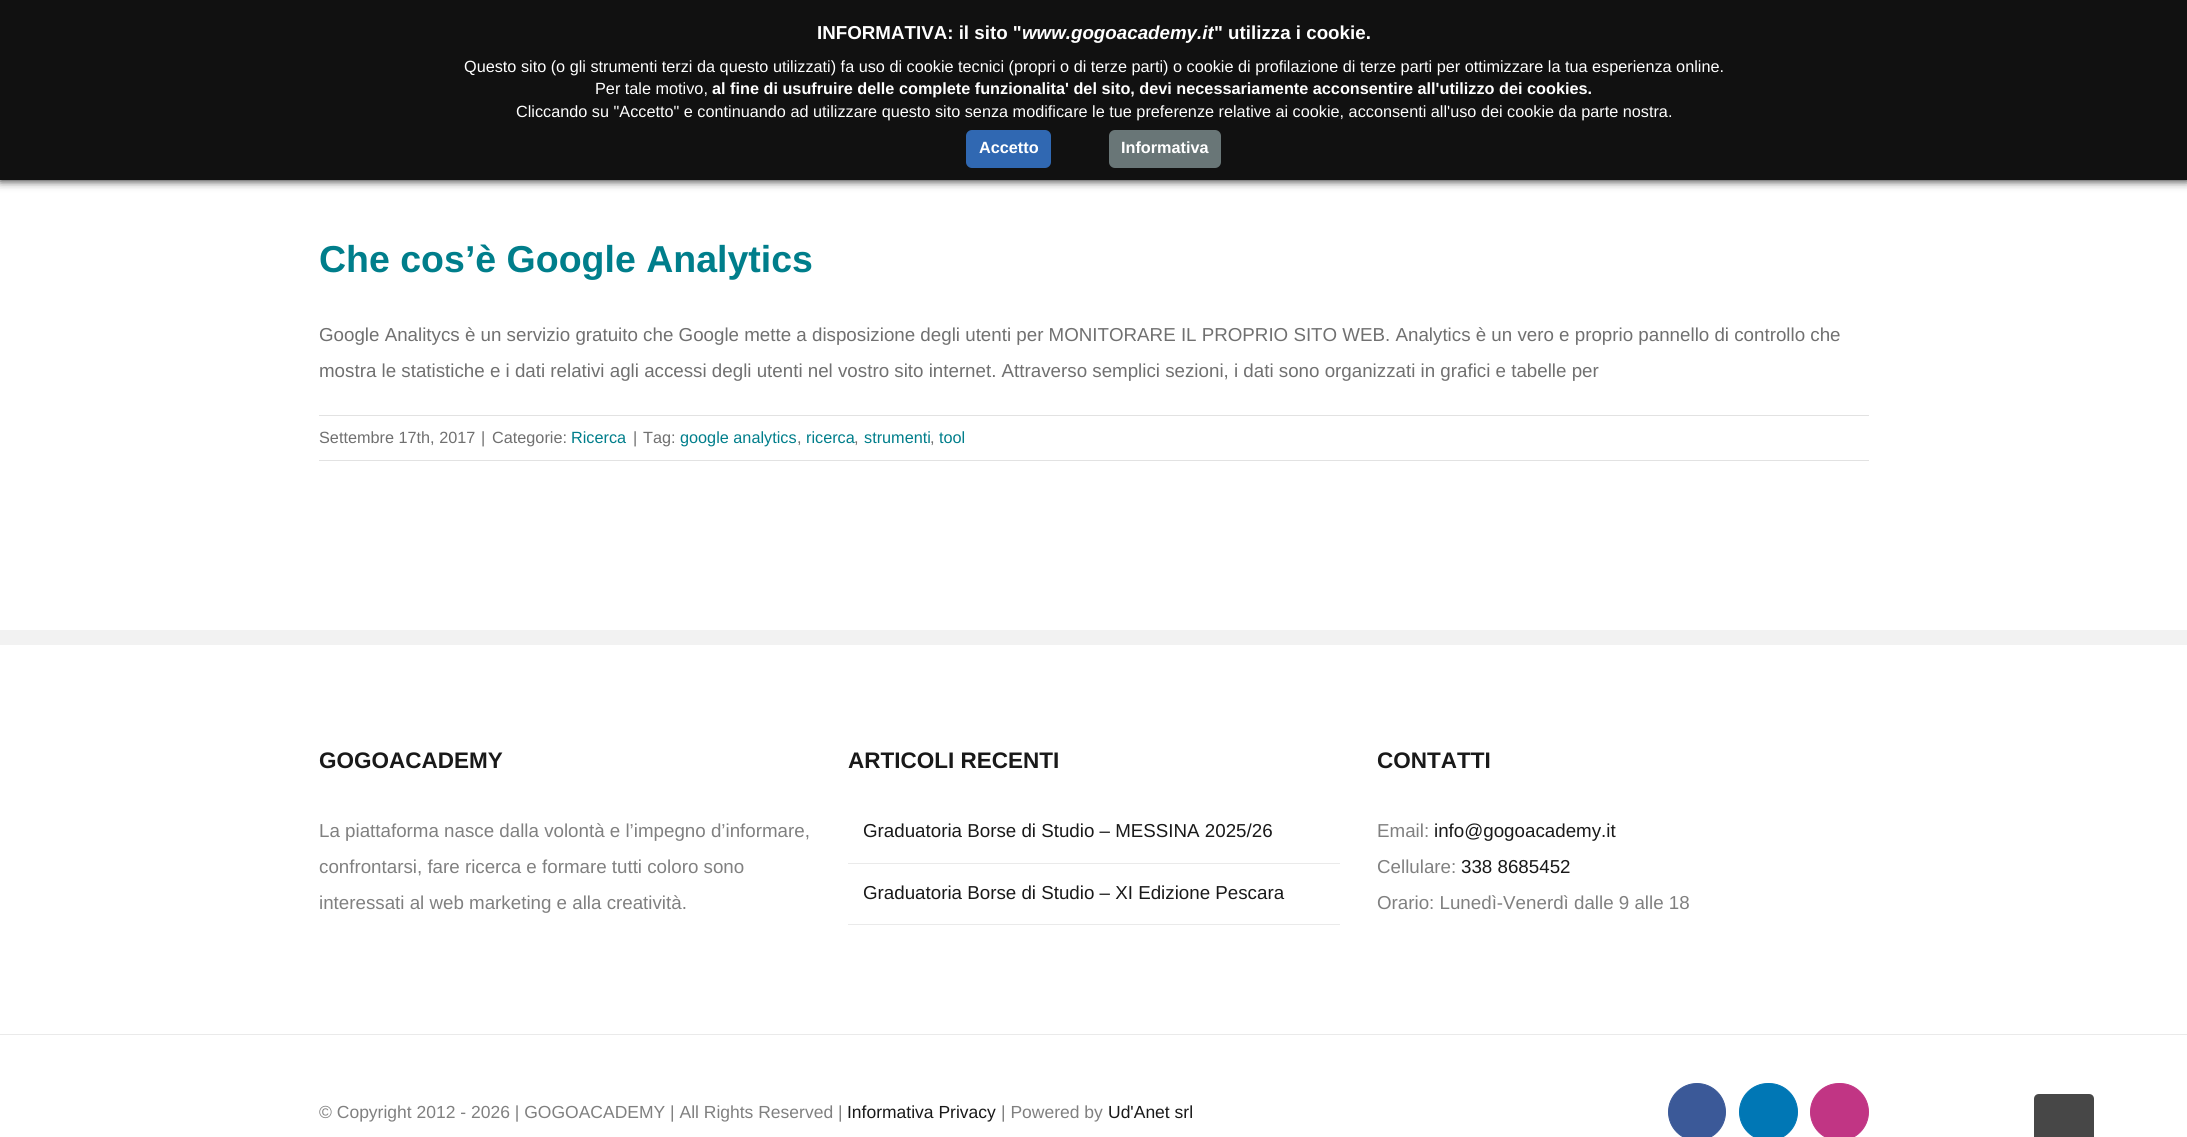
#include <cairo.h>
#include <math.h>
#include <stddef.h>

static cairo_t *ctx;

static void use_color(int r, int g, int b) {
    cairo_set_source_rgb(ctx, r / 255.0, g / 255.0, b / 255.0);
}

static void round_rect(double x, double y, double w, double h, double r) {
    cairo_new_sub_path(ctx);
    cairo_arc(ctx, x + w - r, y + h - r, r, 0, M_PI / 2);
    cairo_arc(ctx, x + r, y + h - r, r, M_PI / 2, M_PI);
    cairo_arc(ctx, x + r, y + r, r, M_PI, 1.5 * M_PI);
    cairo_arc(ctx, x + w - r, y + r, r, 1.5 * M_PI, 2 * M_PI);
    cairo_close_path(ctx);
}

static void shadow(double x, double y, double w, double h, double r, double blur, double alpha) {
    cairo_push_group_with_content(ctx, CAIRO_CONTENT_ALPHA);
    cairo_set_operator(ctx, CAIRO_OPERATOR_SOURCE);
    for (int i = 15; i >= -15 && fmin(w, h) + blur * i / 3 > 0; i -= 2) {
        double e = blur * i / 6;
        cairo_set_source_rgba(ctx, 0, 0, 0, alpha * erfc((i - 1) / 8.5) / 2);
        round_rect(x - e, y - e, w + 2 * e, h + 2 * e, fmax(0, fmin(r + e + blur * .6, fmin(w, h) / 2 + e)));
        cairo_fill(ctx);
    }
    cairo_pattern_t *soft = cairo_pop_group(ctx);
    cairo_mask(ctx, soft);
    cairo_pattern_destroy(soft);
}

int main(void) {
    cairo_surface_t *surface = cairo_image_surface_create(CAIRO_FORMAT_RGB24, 2187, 1137);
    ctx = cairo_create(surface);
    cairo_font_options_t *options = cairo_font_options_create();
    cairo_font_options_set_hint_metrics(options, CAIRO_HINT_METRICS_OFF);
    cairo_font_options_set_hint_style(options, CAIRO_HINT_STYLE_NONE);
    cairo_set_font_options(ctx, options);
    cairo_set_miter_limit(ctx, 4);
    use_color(255, 255, 255);
    cairo_paint(ctx);
    use_color(0, 0, 0);
    shadow(0, 0, 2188, 180, 0, 5, 1);
    use_color(17, 17, 17);
    cairo_rectangle(ctx, 0, 0, 2187, 180);
    cairo_fill(ctx);
    cairo_select_font_face(ctx, "Liberation Sans", CAIRO_FONT_SLANT_NORMAL, CAIRO_FONT_WEIGHT_BOLD);
    cairo_set_font_size(ctx, 18.75);
    use_color(255, 255, 255);
    cairo_move_to(ctx, 817, 39);
    cairo_show_text(ctx, "INFORMATIVA: il sito \"");
    cairo_select_font_face(ctx, "Liberation Sans", CAIRO_FONT_SLANT_ITALIC, CAIRO_FONT_WEIGHT_BOLD);
    cairo_move_to(ctx, 1022, 39);
    cairo_show_text(ctx, "www.gogoacademy.it");
    cairo_select_font_face(ctx, "Liberation Sans", CAIRO_FONT_SLANT_NORMAL, CAIRO_FONT_WEIGHT_BOLD);
    cairo_move_to(ctx, 1214, 39);
    cairo_show_text(ctx, "\" utilizza i cookie.");
    cairo_select_font_face(ctx, "Liberation Sans", CAIRO_FONT_SLANT_NORMAL, CAIRO_FONT_WEIGHT_NORMAL);
    cairo_set_font_size(ctx, 16.25);
    cairo_move_to(ctx, 464, 72);
    cairo_show_text(ctx, "Questo sito (o gli strumenti terzi da questo utilizzati) fa uso di cookie tecnici (propri o di terze parti) o cookie di profilazione di terze parti per ottimizzare la tua esperienza online.");
    cairo_move_to(ctx, 595, 94);
    cairo_show_text(ctx, "Per tale motivo,");
    cairo_select_font_face(ctx, "Liberation Sans", CAIRO_FONT_SLANT_NORMAL, CAIRO_FONT_WEIGHT_BOLD);
    cairo_move_to(ctx, 712, 94);
    cairo_show_text(ctx, "al fine di usufruire delle complete funzionalita' del sito, devi necessariamente acconsentire all'utilizzo dei cookies.");
    cairo_select_font_face(ctx, "Liberation Sans", CAIRO_FONT_SLANT_NORMAL, CAIRO_FONT_WEIGHT_NORMAL);
    cairo_move_to(ctx, 516, 117);
    cairo_show_text(ctx, "Cliccando su \"Accetto\" e continuando ad utilizzare questo sito senza modificare le tue preferenze relative ai cookie, acconsenti all'uso dei cookie da parte nostra.");
    use_color(48, 104, 178);
    round_rect(966, 130, 85, 38, 6);
    cairo_fill(ctx);
    cairo_select_font_face(ctx, "Liberation Sans", CAIRO_FONT_SLANT_NORMAL, CAIRO_FONT_WEIGHT_BOLD);
    use_color(255, 255, 255);
    cairo_move_to(ctx, 979, 153);
    cairo_show_text(ctx, "Accetto");
    use_color(105, 118, 119);
    round_rect(1109, 130, 112, 38, 6);
    cairo_fill(ctx);
    use_color(255, 255, 255);
    cairo_move_to(ctx, 1121, 153);
    cairo_show_text(ctx, "Informativa");
    cairo_set_font_size(ctx, 37.5);
    use_color(0, 126, 139);
    cairo_move_to(ctx, 319, 272);
    cairo_show_text(ctx, "Che cos’è Google Analytics");
    cairo_select_font_face(ctx, "Liberation Sans", CAIRO_FONT_SLANT_NORMAL, CAIRO_FONT_WEIGHT_NORMAL);
    cairo_set_font_size(ctx, 18.75);
    use_color(112, 112, 112);
    cairo_move_to(ctx, 319, 341);
    cairo_show_text(ctx, "Google Analitycs è un servizio gratuito che Google mette a disposizione degli utenti per MONITORARE IL PROPRIO SITO WEB. Analytics è un vero e proprio pannello di controllo che");
    cairo_move_to(ctx, 319, 377);
    cairo_show_text(ctx, "mostra le statistiche e i dati relativi agli accessi degli utenti nel vostro sito internet. Attraverso semplici sezioni, i dati sono organizzati in grafici e tabelle per");
    use_color(226, 226, 226);
    cairo_rectangle(ctx, 319, 415, 1550, 1);
    cairo_fill(ctx);
    cairo_rectangle(ctx, 319, 460, 1550, 1);
    cairo_fill(ctx);
    cairo_set_font_size(ctx, 16.25);
    use_color(112, 112, 112);
    cairo_move_to(ctx, 319, 443);
    cairo_show_text(ctx, "Settembre 17th, 2017");
    cairo_move_to(ctx, 481, 443);
    cairo_show_text(ctx, "|");
    cairo_move_to(ctx, 492, 443);
    cairo_show_text(ctx, "Categorie:");
    use_color(0, 126, 139);
    cairo_move_to(ctx, 571, 443);
    cairo_show_text(ctx, "Ricerca");
    use_color(112, 112, 112);
    cairo_move_to(ctx, 633, 443);
    cairo_show_text(ctx, "|");
    cairo_move_to(ctx, 643, 443);
    cairo_show_text(ctx, "Tag:");
    use_color(0, 126, 139);
    cairo_move_to(ctx, 680, 443);
    cairo_show_text(ctx, "google analytics");
    use_color(112, 112, 112);
    cairo_move_to(ctx, 797, 443);
    cairo_show_text(ctx, ",");
    use_color(0, 126, 139);
    cairo_move_to(ctx, 806, 443);
    cairo_show_text(ctx, "ricerca");
    use_color(112, 112, 112);
    cairo_move_to(ctx, 854, 443);
    cairo_show_text(ctx, ",");
    use_color(0, 126, 139);
    cairo_move_to(ctx, 864, 443);
    cairo_show_text(ctx, "strumenti");
    use_color(112, 112, 112);
    cairo_move_to(ctx, 930, 443);
    cairo_show_text(ctx, ",");
    use_color(0, 126, 139);
    cairo_move_to(ctx, 939, 443);
    cairo_show_text(ctx, "tool");
    use_color(242, 242, 242);
    cairo_rectangle(ctx, 0, 630, 2187, 15);
    cairo_fill(ctx);
    cairo_select_font_face(ctx, "Liberation Sans", CAIRO_FONT_SLANT_NORMAL, CAIRO_FONT_WEIGHT_BOLD);
    cairo_set_font_size(ctx, 22.5);
    use_color(25, 25, 25);
    cairo_move_to(ctx, 319, 768);
    cairo_show_text(ctx, "GOGOACADEMY");
    cairo_select_font_face(ctx, "Liberation Sans", CAIRO_FONT_SLANT_NORMAL, CAIRO_FONT_WEIGHT_NORMAL);
    cairo_set_font_size(ctx, 18.75);
    use_color(128, 128, 128);
    cairo_move_to(ctx, 319, 837);
    cairo_show_text(ctx, "La piattaforma nasce dalla volontà e l’impegno d’informare,");
    cairo_move_to(ctx, 319, 873);
    cairo_show_text(ctx, "confrontarsi, fare ricerca e formare tutti coloro sono");
    cairo_move_to(ctx, 319, 909);
    cairo_show_text(ctx, "interessati al web marketing e alla creatività.");
    cairo_select_font_face(ctx, "Liberation Sans", CAIRO_FONT_SLANT_NORMAL, CAIRO_FONT_WEIGHT_BOLD);
    cairo_set_font_size(ctx, 22.5);
    use_color(25, 25, 25);
    cairo_move_to(ctx, 848, 768);
    cairo_show_text(ctx, "ARTICOLI RECENTI");
    use_color(234, 234, 234);
    cairo_rectangle(ctx, 848, 863, 492, 1);
    cairo_fill(ctx);
    cairo_select_font_face(ctx, "Liberation Sans", CAIRO_FONT_SLANT_NORMAL, CAIRO_FONT_WEIGHT_NORMAL);
    cairo_set_font_size(ctx, 18.75);
    use_color(25, 25, 25);
    cairo_move_to(ctx, 863, 837);
    cairo_show_text(ctx, "Graduatoria Borse di Studio – MESSINA 2025/26");
    use_color(234, 234, 234);
    cairo_rectangle(ctx, 848, 924, 492, 1);
    cairo_fill(ctx);
    use_color(25, 25, 25);
    cairo_move_to(ctx, 863, 899);
    cairo_show_text(ctx, "Graduatoria Borse di Studio – XI Edizione Pescara");
    cairo_select_font_face(ctx, "Liberation Sans", CAIRO_FONT_SLANT_NORMAL, CAIRO_FONT_WEIGHT_BOLD);
    cairo_set_font_size(ctx, 22.5);
    cairo_move_to(ctx, 1377, 768);
    cairo_show_text(ctx, "CONTATTI");
    cairo_select_font_face(ctx, "Liberation Sans", CAIRO_FONT_SLANT_NORMAL, CAIRO_FONT_WEIGHT_NORMAL);
    cairo_set_font_size(ctx, 18.75);
    use_color(128, 128, 128);
    cairo_move_to(ctx, 1377, 837);
    cairo_show_text(ctx, "Email:");
    use_color(25, 25, 25);
    cairo_move_to(ctx, 1434, 837);
    cairo_show_text(ctx, "info@gogoacademy.it");
    use_color(128, 128, 128);
    cairo_move_to(ctx, 1377, 873);
    cairo_show_text(ctx, "Cellulare:");
    use_color(25, 25, 25);
    cairo_move_to(ctx, 1461, 873);
    cairo_show_text(ctx, "338 8685452");
    use_color(128, 128, 128);
    cairo_move_to(ctx, 1377, 909);
    cairo_show_text(ctx, "Orario: Lunedì-Venerdì dalle 9 alle 18");
    use_color(234, 234, 234);
    cairo_rectangle(ctx, 0, 1034, 2187, 1);
    cairo_fill(ctx);
    cairo_set_font_size(ctx, 17.5);
    use_color(128, 128, 128);
    cairo_move_to(ctx, 319, 1118);
    cairo_show_text(ctx, "© Copyright 2012 - 2026 | GOGOACADEMY | All Rights Reserved |");
    use_color(25, 25, 25);
    cairo_move_to(ctx, 847, 1118);
    cairo_show_text(ctx, "Informativa Privacy");
    use_color(128, 128, 128);
    cairo_move_to(ctx, 1001, 1118);
    cairo_show_text(ctx, "| Powered by");
    use_color(25, 25, 25);
    cairo_move_to(ctx, 1108, 1118);
    cairo_show_text(ctx, "Ud'Anet srl");
    use_color(59, 89, 152);
    cairo_new_path(ctx);
    cairo_arc(ctx, 1697, 1112, 28.5, 0, 2 * M_PI);
    cairo_fill_preserve(ctx);
    cairo_set_line_width(ctx, 1);
    cairo_stroke(ctx);
    use_color(0, 119, 181);
    round_rect(1739.5, 1083.5, 58, 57, 28.5);
    cairo_fill_preserve(ctx);
    cairo_stroke(ctx);
    use_color(193, 53, 132);
    round_rect(1810.5, 1083.5, 58, 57, 28.5);
    cairo_fill_preserve(ctx);
    cairo_stroke(ctx);
    use_color(71, 71, 71);
    cairo_new_path(ctx);
    cairo_move_to(ctx, 2039, 1094);
    cairo_line_to(ctx, 2089, 1094);
    cairo_curve_to(ctx, 2092, 1094, 2094, 1096, 2094, 1099);
    cairo_line_to(ctx, 2094, 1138);
    cairo_line_to(ctx, 2034, 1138);
    cairo_line_to(ctx, 2034, 1099);
    cairo_curve_to(ctx, 2034, 1096, 2036, 1094, 2039, 1094);
    cairo_close_path(ctx);
    cairo_fill(ctx);
    cairo_surface_write_to_png(surface, "result.png");
    cairo_font_options_destroy(options);
    cairo_destroy(ctx);
    cairo_surface_destroy(surface);
    return 0;
}
